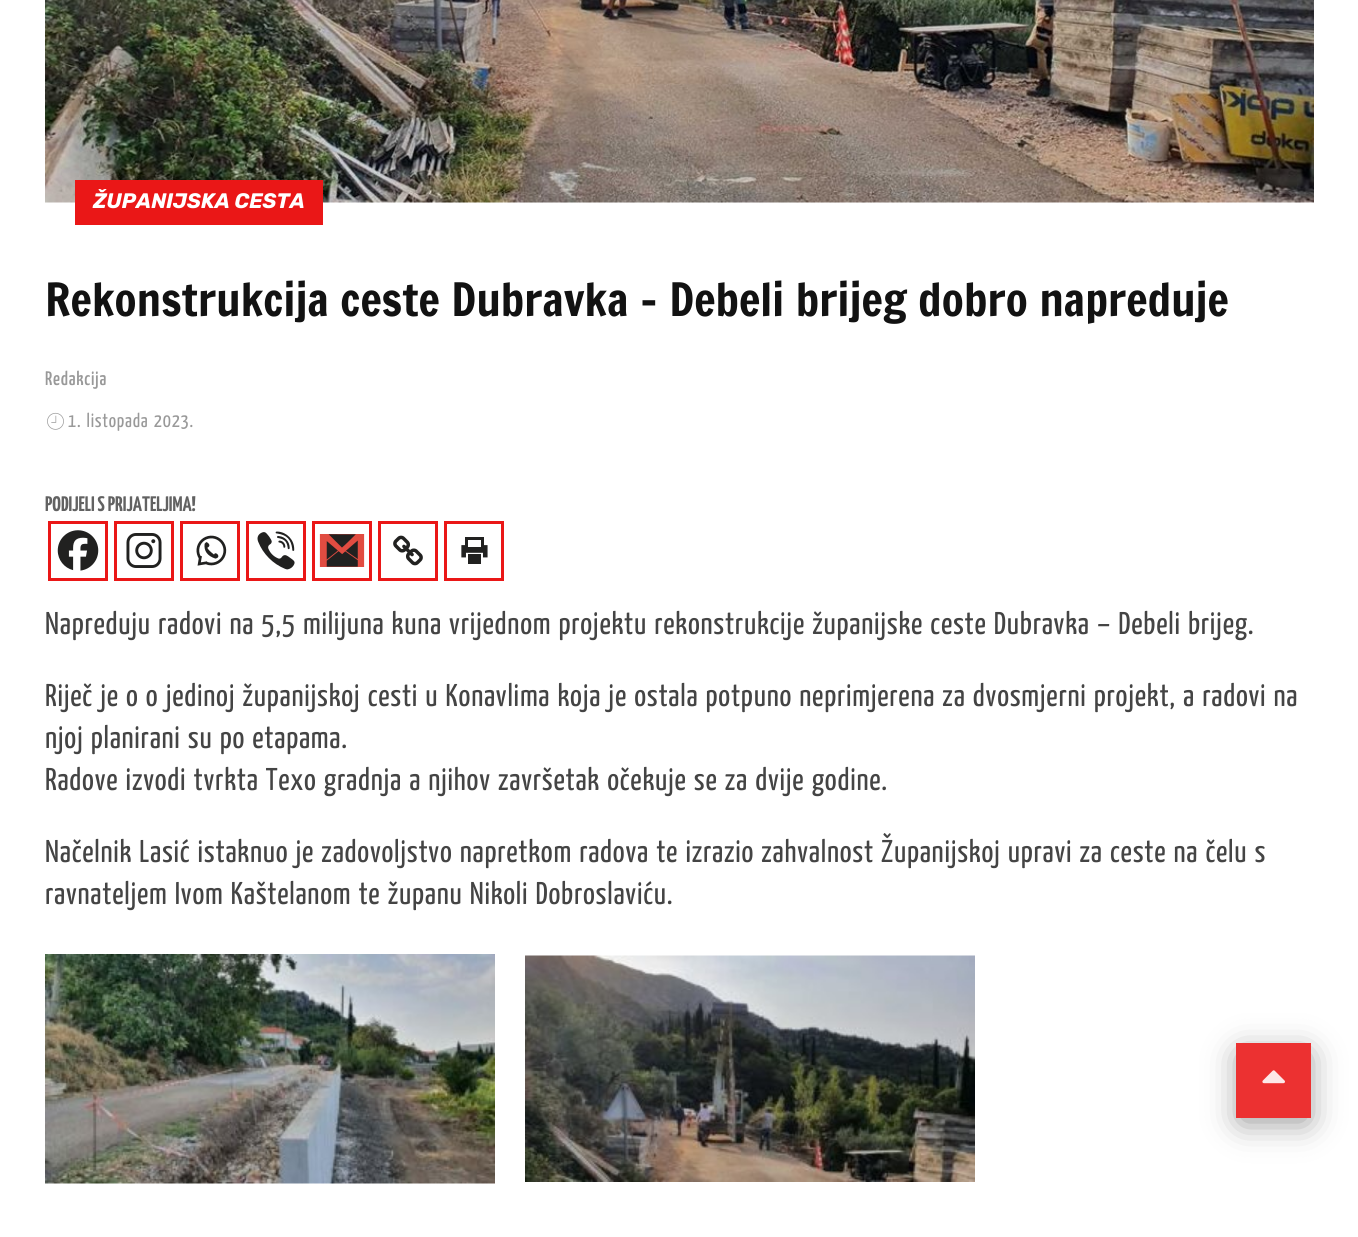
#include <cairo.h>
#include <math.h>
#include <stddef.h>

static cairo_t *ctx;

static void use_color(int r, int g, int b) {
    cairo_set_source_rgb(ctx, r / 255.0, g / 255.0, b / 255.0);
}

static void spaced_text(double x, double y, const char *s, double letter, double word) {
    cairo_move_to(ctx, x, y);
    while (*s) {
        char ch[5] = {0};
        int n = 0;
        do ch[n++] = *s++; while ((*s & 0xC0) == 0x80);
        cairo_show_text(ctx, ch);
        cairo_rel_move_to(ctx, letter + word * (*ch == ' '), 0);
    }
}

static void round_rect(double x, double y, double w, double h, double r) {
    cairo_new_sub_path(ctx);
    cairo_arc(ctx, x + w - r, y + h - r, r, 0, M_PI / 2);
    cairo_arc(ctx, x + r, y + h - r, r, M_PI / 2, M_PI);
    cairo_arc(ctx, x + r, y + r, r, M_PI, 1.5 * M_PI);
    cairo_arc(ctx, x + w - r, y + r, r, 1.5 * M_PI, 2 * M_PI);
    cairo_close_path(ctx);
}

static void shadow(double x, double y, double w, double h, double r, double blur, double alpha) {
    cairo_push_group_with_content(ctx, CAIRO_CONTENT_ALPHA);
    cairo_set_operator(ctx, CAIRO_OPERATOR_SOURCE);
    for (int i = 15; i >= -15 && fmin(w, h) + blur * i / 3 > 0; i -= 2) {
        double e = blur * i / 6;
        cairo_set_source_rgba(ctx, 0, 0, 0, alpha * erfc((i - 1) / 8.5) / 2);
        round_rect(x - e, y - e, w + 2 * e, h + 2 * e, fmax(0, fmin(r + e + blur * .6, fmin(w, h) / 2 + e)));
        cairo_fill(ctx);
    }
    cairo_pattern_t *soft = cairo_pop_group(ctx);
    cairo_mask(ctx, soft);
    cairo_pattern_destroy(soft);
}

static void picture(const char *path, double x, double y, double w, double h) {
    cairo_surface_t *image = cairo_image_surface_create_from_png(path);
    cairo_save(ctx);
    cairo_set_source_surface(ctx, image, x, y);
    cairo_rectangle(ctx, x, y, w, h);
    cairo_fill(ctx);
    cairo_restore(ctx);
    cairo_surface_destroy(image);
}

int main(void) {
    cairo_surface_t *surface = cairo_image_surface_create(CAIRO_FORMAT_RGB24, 1358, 1237);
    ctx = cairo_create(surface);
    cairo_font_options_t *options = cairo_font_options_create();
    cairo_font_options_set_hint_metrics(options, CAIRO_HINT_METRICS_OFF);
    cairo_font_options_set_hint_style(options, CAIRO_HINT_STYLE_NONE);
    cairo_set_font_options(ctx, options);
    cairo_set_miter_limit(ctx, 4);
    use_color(255, 255, 255);
    cairo_paint(ctx);
    picture("img1.png", 45, 0, 1269, 203);
    use_color(234, 23, 23);
    cairo_rectangle(ctx, 75, 180, 248, 45);
    cairo_fill(ctx);
    cairo_select_font_face(ctx, "Rubik", CAIRO_FONT_SLANT_ITALIC, CAIRO_FONT_WEIGHT_BOLD);
    cairo_set_font_size(ctx, 21);
    use_color(255, 255, 255);
    cairo_move_to(ctx, 93, 208);
    cairo_show_text(ctx, "ŽUPANIJSKA CESTA");
    cairo_select_font_face(ctx, "Francois One", CAIRO_FONT_SLANT_NORMAL, CAIRO_FONT_WEIGHT_NORMAL);
    cairo_set_font_size(ctx, 45);
    use_color(18, 18, 18);
    spaced_text(45, 316, "Rekonstrukcija ceste Dubravka – Debeli brijeg dobro napreduje", 0.15, 0.25);
    cairo_select_font_face(ctx, "Yanone Kaffeesatz Medium", CAIRO_FONT_SLANT_NORMAL, CAIRO_FONT_WEIGHT_NORMAL);
    cairo_set_font_size(ctx, 19.5);
    use_color(153, 153, 153);
    spaced_text(45, 385, "Redakcija", 0.75, 0);
    picture("img2.png", 47, 412, 17, 18);
    cairo_select_font_face(ctx, "Yanone Kaffeesatz ExtraLight", CAIRO_FONT_SLANT_NORMAL, CAIRO_FONT_WEIGHT_NORMAL);
    spaced_text(68, 427, "1. listopada 2023.", 0.75, 1.5);
    cairo_select_font_face(ctx, "Yanone Kaffeesatz", CAIRO_FONT_SLANT_NORMAL, CAIRO_FONT_WEIGHT_BOLD);
    cairo_set_font_size(ctx, 21);
    use_color(98, 98, 98);
    cairo_move_to(ctx, 45, 511);
    cairo_show_text(ctx, "PODIJELI S PRIJATELJIMA!");
    cairo_rectangle(ctx, 49.5, 522.5, 57, 57);
    use_color(234, 23, 23);
    cairo_set_line_width(ctx, 3);
    cairo_stroke(ctx);
    picture("img3.png", 57, 530, 42, 41);
    cairo_rectangle(ctx, 115.5, 522.5, 57, 57);
    cairo_stroke(ctx);
    picture("img4.png", 126, 533, 36, 35);
    cairo_rectangle(ctx, 181.5, 522.5, 57, 57);
    cairo_stroke(ctx);
    picture("img5.png", 196, 535, 31, 31);
    cairo_rectangle(ctx, 247.5, 522.5, 57, 57);
    cairo_stroke(ctx);
    picture("img6.png", 257, 531, 38, 39);
    cairo_rectangle(ctx, 313.5, 522.5, 57, 57);
    cairo_stroke(ctx);
    picture("img7.png", 319, 534, 46, 33);
    cairo_rectangle(ctx, 379.5, 522.5, 57, 57);
    cairo_stroke(ctx);
    picture("img8.png", 393, 535, 30, 31);
    cairo_rectangle(ctx, 445.5, 522.5, 57, 57);
    cairo_stroke(ctx);
    picture("img9.png", 461, 537, 27, 27);
    cairo_select_font_face(ctx, "Yanone Kaffeesatz ExtraLight", CAIRO_FONT_SLANT_NORMAL, CAIRO_FONT_WEIGHT_NORMAL);
    cairo_set_font_size(ctx, 31.5);
    use_color(68, 68, 68);
    spaced_text(45, 634, "Napreduju radovi na 5,5 milijuna kuna vrijednom projektu rekonstrukcije županijske ceste Dubravka – Debeli brijeg.", 0.75, 1.5);
    spaced_text(45, 706, "Riječ je o o jedinoj županijskoj cesti u Konavlima koja je ostala potpuno neprimjerena za dvosmjerni projekt, a radovi na", 0.75, 1.5);
    spaced_text(45, 748, "njoj planirani su po etapama.", 0.75, 1.5);
    spaced_text(45, 790, "Radove izvodi tvrkta Texo gradnja a njihov završetak očekuje se za dvije godine.", 0.75, 1.5);
    spaced_text(45, 862, "Načelnik Lasić istaknuo je zadovoljstvo napretkom radova te izrazio zahvalnost Županijskoj upravi za ceste na čelu s", 0.75, 1.5);
    spaced_text(45, 904, "ravnateljem Ivom Kaštelanom te županu Nikoli Dobroslaviću.", 0.75, 1.5);
    picture("img10.png", 45, 954, 450, 230);
    picture("img11.png", 525, 955, 450, 227);
    use_color(28, 28, 28);
    shadow(1241, 1055, 66, 66, 0, 17, 0.5);
    use_color(236, 49, 49);
    cairo_rectangle(ctx, 1236, 1043, 75, 75);
    cairo_fill(ctx);
    picture("img12.png", 1262, 1070, 23, 14);
    cairo_surface_write_to_png(surface, "result.png");
    cairo_font_options_destroy(options);
    cairo_destroy(ctx);
    cairo_surface_destroy(surface);
    return 0;
}
